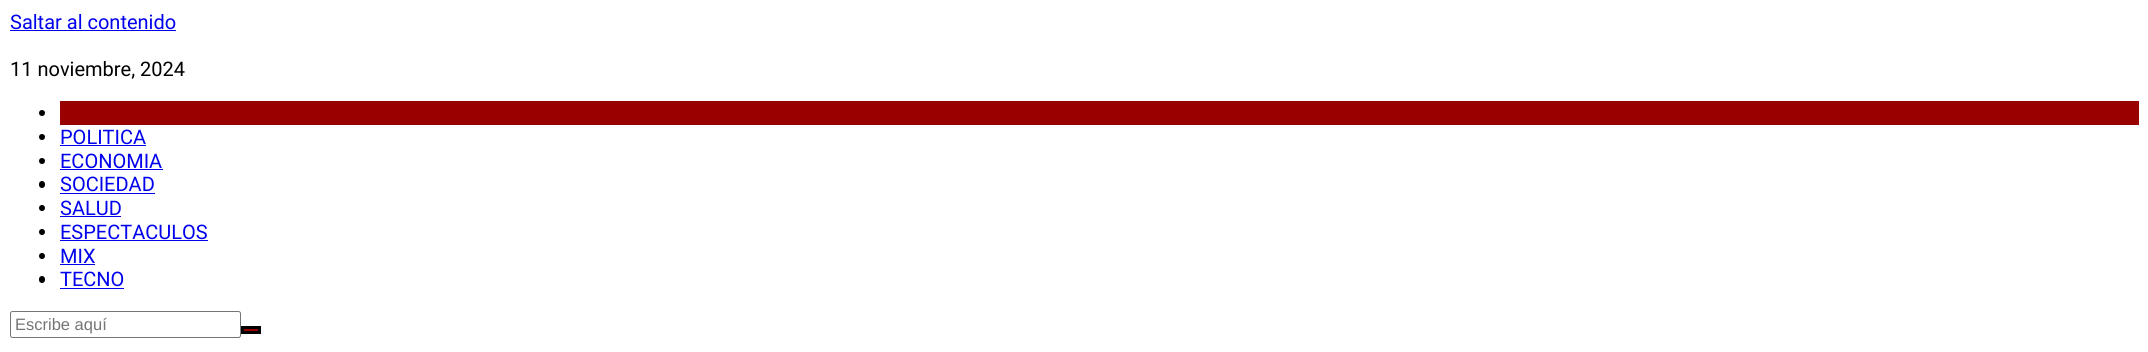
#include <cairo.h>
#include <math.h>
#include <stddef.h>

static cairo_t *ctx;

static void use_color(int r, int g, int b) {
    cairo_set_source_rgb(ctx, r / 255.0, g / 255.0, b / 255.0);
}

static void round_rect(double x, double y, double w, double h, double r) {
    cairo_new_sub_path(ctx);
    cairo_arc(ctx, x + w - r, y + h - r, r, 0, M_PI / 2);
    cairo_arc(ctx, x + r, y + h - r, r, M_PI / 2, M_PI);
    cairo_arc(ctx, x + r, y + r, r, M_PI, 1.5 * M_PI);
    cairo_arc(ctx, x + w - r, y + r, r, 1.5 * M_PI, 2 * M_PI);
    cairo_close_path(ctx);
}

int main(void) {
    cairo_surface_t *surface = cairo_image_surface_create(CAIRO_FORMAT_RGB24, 2148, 352);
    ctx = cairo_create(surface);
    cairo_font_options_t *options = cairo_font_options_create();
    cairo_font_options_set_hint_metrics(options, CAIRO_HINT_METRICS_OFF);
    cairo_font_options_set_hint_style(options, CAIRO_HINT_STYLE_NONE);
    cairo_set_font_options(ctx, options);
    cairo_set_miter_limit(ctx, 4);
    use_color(255, 255, 255);
    cairo_paint(ctx);
    cairo_select_font_face(ctx, "Roboto", CAIRO_FONT_SLANT_NORMAL, CAIRO_FONT_WEIGHT_NORMAL);
    cairo_set_font_size(ctx, 20);
    use_color(0, 0, 238);
    cairo_move_to(ctx, 10, 29);
    cairo_show_text(ctx, "Saltar al contenido");
    cairo_rectangle(ctx, 10, 30, 166, 1);
    cairo_fill(ctx);
    use_color(0, 0, 0);
    cairo_move_to(ctx, 10, 76);
    cairo_show_text(ctx, "11 noviembre, 2024");
    use_color(153, 0, 0);
    cairo_rectangle(ctx, 60, 101, 2079, 24);
    cairo_fill(ctx);
    use_color(0, 0, 0);
    cairo_arc(ctx, 42, 113, 3, 0, 2 * M_PI);
    cairo_fill(ctx);
    cairo_arc(ctx, 42, 137, 3, 0, 2 * M_PI);
    cairo_fill(ctx);
    use_color(0, 0, 238);
    cairo_move_to(ctx, 60, 144);
    cairo_show_text(ctx, "POLITICA");
    cairo_rectangle(ctx, 60, 145, 86, 1);
    cairo_fill(ctx);
    use_color(0, 0, 0);
    cairo_arc(ctx, 42, 161, 3, 0, 2 * M_PI);
    cairo_fill(ctx);
    use_color(0, 0, 238);
    cairo_move_to(ctx, 60, 168);
    cairo_show_text(ctx, "ECONOMIA");
    cairo_rectangle(ctx, 60, 169, 103, 1);
    cairo_fill(ctx);
    use_color(0, 0, 0);
    round_rect(39, 181, 6, 7, 3);
    cairo_fill(ctx);
    use_color(0, 0, 238);
    cairo_move_to(ctx, 60, 191);
    cairo_show_text(ctx, "SOCIEDAD");
    cairo_rectangle(ctx, 60, 193, 95, 1);
    cairo_fill(ctx);
    use_color(0, 0, 0);
    cairo_arc(ctx, 42, 208, 3, 0, 2 * M_PI);
    cairo_fill(ctx);
    use_color(0, 0, 238);
    cairo_move_to(ctx, 60, 215);
    cairo_show_text(ctx, "SALUD");
    cairo_rectangle(ctx, 60, 216, 61, 1);
    cairo_fill(ctx);
    use_color(0, 0, 0);
    cairo_arc(ctx, 42, 232, 3, 0, 2 * M_PI);
    cairo_fill(ctx);
    use_color(0, 0, 238);
    cairo_move_to(ctx, 60, 239);
    cairo_show_text(ctx, "ESPECTACULOS");
    cairo_rectangle(ctx, 60, 240, 148, 1);
    cairo_fill(ctx);
    use_color(0, 0, 0);
    cairo_arc(ctx, 42, 256, 3, 0, 2 * M_PI);
    cairo_fill(ctx);
    use_color(0, 0, 238);
    cairo_move_to(ctx, 60, 263);
    cairo_show_text(ctx, "MIX");
    cairo_rectangle(ctx, 60, 264, 35, 1);
    cairo_fill(ctx);
    use_color(0, 0, 0);
    round_rect(39, 276, 6, 7, 3);
    cairo_fill(ctx);
    use_color(0, 0, 238);
    cairo_move_to(ctx, 60, 286);
    cairo_show_text(ctx, "TECNO");
    cairo_rectangle(ctx, 60, 288, 64, 1);
    cairo_fill(ctx);
    round_rect(10.5, 311.5, 230, 26, 2);
    use_color(118, 118, 118);
    cairo_set_line_width(ctx, 1);
    cairo_stroke(ctx);
    cairo_select_font_face(ctx, "Liberation Sans", CAIRO_FONT_SLANT_NORMAL, CAIRO_FONT_WEIGHT_NORMAL);
    cairo_set_font_size(ctx, 16.5);
    use_color(117, 117, 117);
    cairo_move_to(ctx, 15, 330);
    cairo_show_text(ctx, "Escribe aquí");
    use_color(153, 0, 0);
    cairo_rectangle(ctx, 242.5, 327.5, 17, 5);
    cairo_fill_preserve(ctx);
    use_color(0, 0, 0);
    cairo_set_line_width(ctx, 3);
    cairo_stroke(ctx);
    cairo_surface_write_to_png(surface, "result.png");
    cairo_font_options_destroy(options);
    cairo_destroy(ctx);
    cairo_surface_destroy(surface);
    return 0;
}
